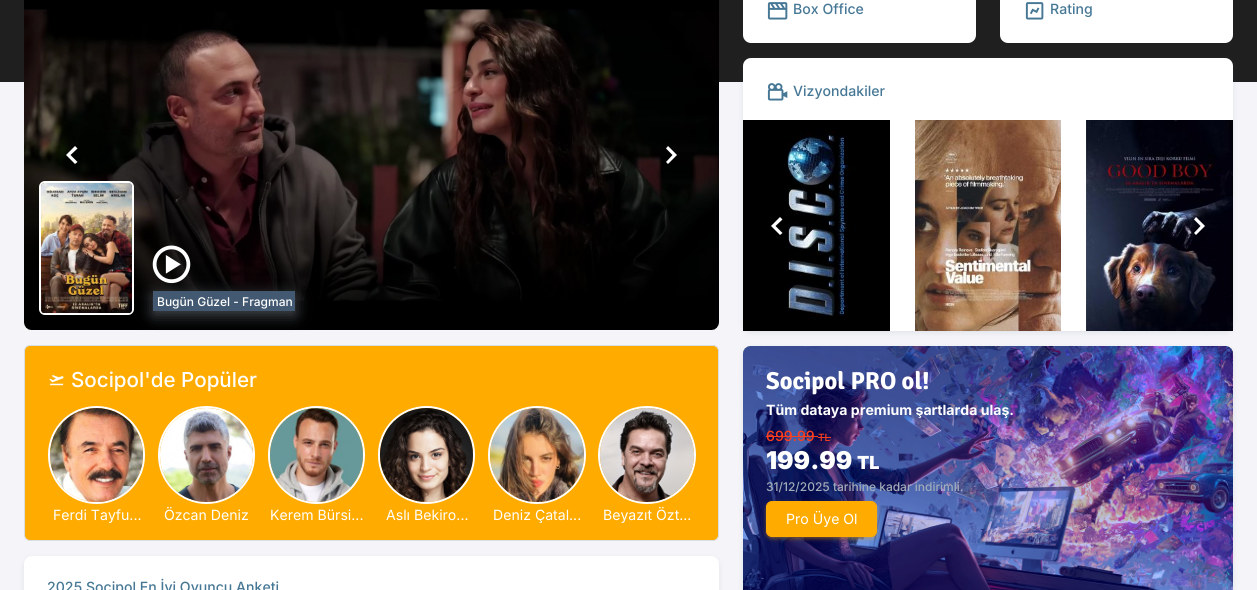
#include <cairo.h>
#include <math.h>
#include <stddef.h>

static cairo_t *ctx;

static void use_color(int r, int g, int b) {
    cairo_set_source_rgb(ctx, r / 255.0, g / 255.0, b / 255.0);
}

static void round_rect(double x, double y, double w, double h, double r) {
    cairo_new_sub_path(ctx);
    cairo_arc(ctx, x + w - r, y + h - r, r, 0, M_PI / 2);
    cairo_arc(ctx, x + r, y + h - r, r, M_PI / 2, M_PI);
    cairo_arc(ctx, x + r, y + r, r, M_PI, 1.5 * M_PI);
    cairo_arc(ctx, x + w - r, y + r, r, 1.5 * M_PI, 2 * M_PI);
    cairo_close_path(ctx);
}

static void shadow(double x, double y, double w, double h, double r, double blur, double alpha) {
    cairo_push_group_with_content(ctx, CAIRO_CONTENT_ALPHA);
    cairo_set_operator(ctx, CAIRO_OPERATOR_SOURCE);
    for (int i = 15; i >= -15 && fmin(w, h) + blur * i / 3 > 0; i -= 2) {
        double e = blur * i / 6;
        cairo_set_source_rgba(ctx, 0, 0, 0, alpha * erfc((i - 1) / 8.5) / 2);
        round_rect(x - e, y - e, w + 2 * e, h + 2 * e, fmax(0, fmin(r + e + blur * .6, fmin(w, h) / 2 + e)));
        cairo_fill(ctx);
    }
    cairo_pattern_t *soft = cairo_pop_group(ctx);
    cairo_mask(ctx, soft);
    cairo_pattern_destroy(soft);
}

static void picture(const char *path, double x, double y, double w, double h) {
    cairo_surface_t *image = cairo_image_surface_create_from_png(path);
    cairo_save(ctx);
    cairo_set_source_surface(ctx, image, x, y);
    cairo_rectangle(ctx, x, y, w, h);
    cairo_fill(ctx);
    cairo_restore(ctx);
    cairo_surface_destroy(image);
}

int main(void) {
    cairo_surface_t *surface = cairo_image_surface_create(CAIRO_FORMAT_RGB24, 1257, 590);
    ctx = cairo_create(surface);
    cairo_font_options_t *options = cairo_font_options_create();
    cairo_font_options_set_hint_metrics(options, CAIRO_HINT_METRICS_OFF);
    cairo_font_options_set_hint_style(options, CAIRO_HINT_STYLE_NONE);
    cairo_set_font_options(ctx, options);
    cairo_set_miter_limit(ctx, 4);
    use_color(245, 245, 249);
    cairo_paint(ctx);
    use_color(31, 31, 31);
    cairo_rectangle(ctx, 0, 0, 1257, 82);
    cairo_fill(ctx);
    picture("img1.png", 24, 0, 695, 330);
    use_color(255, 255, 255);
    cairo_new_path(ctx);
    cairo_move_to(ctx, 75, 146);
    cairo_line_to(ctx, 66, 155);
    cairo_line_to(ctx, 75, 164);
    cairo_line_to(ctx, 77.5, 162);
    cairo_line_to(ctx, 70.5, 155);
    cairo_line_to(ctx, 77.5, 148.5);
    cairo_close_path(ctx);
    cairo_fill(ctx);
    cairo_new_path(ctx);
    cairo_move_to(ctx, 668, 164);
    cairo_line_to(ctx, 677, 155);
    cairo_line_to(ctx, 668, 146);
    cairo_line_to(ctx, 666, 148.5);
    cairo_line_to(ctx, 672.5, 155);
    cairo_line_to(ctx, 666, 162);
    cairo_close_path(ctx);
    cairo_fill(ctx);
    round_rect(40, 182, 93, 132, 5);
    cairo_stroke(ctx);
    picture("img2.png", 41, 183, 91, 130);
    use_color(161, 172, 184);
    shadow(153, 295, 142, 20, 0, 7.5, 0.45);
    picture("img3.png", 152, 245, 39, 39);
    use_color(67, 89, 113);
    cairo_rectangle(ctx, 153, 291, 142, 20);
    cairo_fill(ctx);
    cairo_select_font_face(ctx, "Inter Medium", CAIRO_FONT_SLANT_NORMAL, CAIRO_FONT_WEIGHT_NORMAL);
    cairo_set_font_size(ctx, 12);
    use_color(255, 255, 255);
    cairo_move_to(ctx, 157, 306);
    cairo_show_text(ctx, "Bugün Güzel - Fragman");
    use_color(255, 171, 0);
    round_rect(24.5, 345.5, 694, 195, 5.5);
    cairo_fill_preserve(ctx);
    use_color(217, 222, 227);
    cairo_set_line_width(ctx, 1);
    cairo_stroke(ctx);
    picture("img4.png", 49, 375, 15, 11);
    cairo_set_font_size(ctx, 20.6);
    use_color(255, 255, 255);
    cairo_move_to(ctx, 71, 387);
    cairo_show_text(ctx, "Socipol'de Popüler");
    round_rect(49, 407, 95, 96, 47.5);
    cairo_set_line_width(ctx, 2);
    cairo_stroke(ctx);
    picture("img5.png", 50, 408, 93, 94);
    cairo_select_font_face(ctx, "Inter", CAIRO_FONT_SLANT_NORMAL, CAIRO_FONT_WEIGHT_NORMAL);
    cairo_set_font_size(ctx, 14.1);
    cairo_move_to(ctx, 53, 520);
    cairo_show_text(ctx, "Ferdi Tayfu...");
    round_rect(159, 407, 95, 96, 47.5);
    cairo_stroke(ctx);
    picture("img6.png", 160, 408, 93, 94);
    cairo_move_to(ctx, 164, 520);
    cairo_show_text(ctx, "Özcan Deniz");
    round_rect(269, 407, 95, 96, 47.5);
    cairo_stroke(ctx);
    picture("img7.png", 270, 408, 93, 94);
    cairo_move_to(ctx, 270, 520);
    cairo_show_text(ctx, "Kerem Bürsi...");
    round_rect(379, 407, 95, 96, 47.5);
    cairo_stroke(ctx);
    picture("img8.png", 380, 408, 93, 94);
    cairo_move_to(ctx, 386, 520);
    cairo_show_text(ctx, "Aslı Bekiro...");
    cairo_new_path(ctx);
    cairo_arc(ctx, 537, 455, 48, 0, 2 * M_PI);
    cairo_stroke(ctx);
    picture("img9.png", 490, 408, 94, 94);
    cairo_move_to(ctx, 493, 520);
    cairo_show_text(ctx, "Deniz Çatal...");
    cairo_new_path(ctx);
    cairo_arc(ctx, 647, 455, 48, 0, 2 * M_PI);
    cairo_stroke(ctx);
    picture("img10.png", 600, 408, 94, 94);
    cairo_move_to(ctx, 603, 520);
    cairo_show_text(ctx, "Beyazıt Özt...");
    use_color(67, 89, 113);
    shadow(24, 558, 695, 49, 8, 3, 0.12);
    use_color(255, 255, 255);
    round_rect(24, 556, 695, 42, 8);
    cairo_fill(ctx);
    cairo_select_font_face(ctx, "Inter Medium", CAIRO_FONT_SLANT_NORMAL, CAIRO_FONT_WEIGHT_NORMAL);
    use_color(70, 120, 150);
    cairo_move_to(ctx, 47, 592);
    cairo_show_text(ctx, "2025 Socipol En İyi Oyuncu Anketi");
    use_color(255, 255, 255);
    round_rect(743, -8, 233, 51, 8);
    cairo_fill(ctx);
    picture("img11.png", 767, 2, 21, 18);
    use_color(70, 120, 150);
    cairo_move_to(ctx, 793, 14);
    cairo_show_text(ctx, "Box Office");
    use_color(255, 255, 255);
    round_rect(1000, -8, 233, 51, 8);
    cairo_fill(ctx);
    picture("img12.png", 1025, 2, 19, 18);
    use_color(70, 120, 150);
    cairo_move_to(ctx, 1050, 14);
    cairo_show_text(ctx, "Rating");
    use_color(67, 89, 113);
    shadow(743, 60, 490, 273, 8, 3, 0.12);
    use_color(255, 255, 255);
    round_rect(743, 58, 490, 273, 8);
    cairo_fill(ctx);
    picture("img13.png", 767, 83, 21, 18);
    use_color(70, 120, 150);
    cairo_move_to(ctx, 793, 96);
    cairo_show_text(ctx, "Vizyondakiler");
    picture("img14.png", 743, 120, 147, 211);
    picture("img15.png", 915, 120, 146, 211);
    picture("img16.png", 1086, 120, 147, 211);
    use_color(255, 255, 255);
    cairo_new_path(ctx);
    cairo_move_to(ctx, 780, 217);
    cairo_line_to(ctx, 771, 226);
    cairo_line_to(ctx, 780, 235);
    cairo_line_to(ctx, 782.5, 233);
    cairo_line_to(ctx, 775.5, 226);
    cairo_line_to(ctx, 782.5, 219.5);
    cairo_close_path(ctx);
    cairo_fill(ctx);
    cairo_new_path(ctx);
    cairo_move_to(ctx, 1196, 235);
    cairo_line_to(ctx, 1205, 226);
    cairo_line_to(ctx, 1196, 217);
    cairo_line_to(ctx, 1194, 219.5);
    cairo_line_to(ctx, 1200.5, 226);
    cairo_line_to(ctx, 1194, 233);
    cairo_close_path(ctx);
    cairo_fill(ctx);
    use_color(67, 89, 113);
    shadow(743, 348, 490, 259, 8, 3, 0.12);
    picture("img17.png", 743, 346, 490, 244);
    cairo_set_source_rgba(ctx, 0, 0, 1, 0.25);
    round_rect(743, 346, 490, 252, 8);
    cairo_fill(ctx);
    cairo_select_font_face(ctx, "Signika", CAIRO_FONT_SLANT_NORMAL, CAIRO_FONT_WEIGHT_BOLD);
    cairo_set_font_size(ctx, 24.5);
    use_color(255, 255, 255);
    cairo_move_to(ctx, 766, 389);
    cairo_show_text(ctx, "Socipol PRO ol!");
    cairo_select_font_face(ctx, "Inter", CAIRO_FONT_SLANT_NORMAL, CAIRO_FONT_WEIGHT_BOLD);
    cairo_set_font_size(ctx, 14.1);
    cairo_move_to(ctx, 766, 415);
    cairo_show_text(ctx, "Tüm dataya premium şartlarda ulaş.");
    cairo_select_font_face(ctx, "Inter Medium", CAIRO_FONT_SLANT_NORMAL, CAIRO_FONT_WEIGHT_NORMAL);
    use_color(255, 62, 29);
    cairo_move_to(ctx, 766, 441);
    cairo_show_text(ctx, "699.99");
    cairo_rectangle(ctx, 766, 436, 52, 1);
    cairo_fill(ctx);
    cairo_set_font_size(ctx, 10);
    cairo_move_to(ctx, 818, 441);
    cairo_show_text(ctx, "TL");
    cairo_rectangle(ctx, 818, 437, 13, 1);
    cairo_fill(ctx);
    cairo_select_font_face(ctx, "Inter Black", CAIRO_FONT_SLANT_NORMAL, CAIRO_FONT_WEIGHT_NORMAL);
    cairo_set_font_size(ctx, 24.5);
    use_color(255, 255, 255);
    cairo_move_to(ctx, 766, 469);
    cairo_show_text(ctx, "199.99");
    cairo_set_font_size(ctx, 18);
    cairo_move_to(ctx, 857, 469);
    cairo_show_text(ctx, "TL");
    cairo_select_font_face(ctx, "Inter Medium", CAIRO_FONT_SLANT_NORMAL, CAIRO_FONT_WEIGHT_NORMAL);
    cairo_set_font_size(ctx, 12);
    use_color(161, 172, 184);
    cairo_move_to(ctx, 766, 491);
    cairo_show_text(ctx, "31/12/2025 tarihine kadar indirimli.");
    use_color(255, 171, 0);
    shadow(766, 503, 111, 36, 6, 2, 0.4);
    use_color(255, 171, 0);
    round_rect(766.5, 501.5, 110, 35, 5.5);
    cairo_fill_preserve(ctx);
    cairo_set_line_width(ctx, 1);
    cairo_stroke(ctx);
    cairo_select_font_face(ctx, "Inter", CAIRO_FONT_SLANT_NORMAL, CAIRO_FONT_WEIGHT_NORMAL);
    cairo_set_font_size(ctx, 14.1);
    use_color(255, 255, 255);
    cairo_move_to(ctx, 786, 524);
    cairo_show_text(ctx, "Pro Üye Ol");
    cairo_surface_write_to_png(surface, "result.png");
    cairo_font_options_destroy(options);
    cairo_destroy(ctx);
    cairo_surface_destroy(surface);
    return 0;
}
